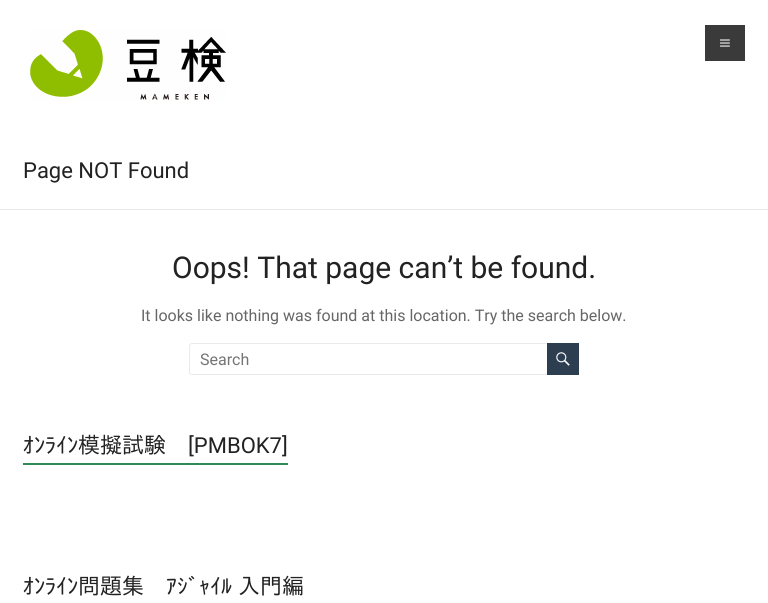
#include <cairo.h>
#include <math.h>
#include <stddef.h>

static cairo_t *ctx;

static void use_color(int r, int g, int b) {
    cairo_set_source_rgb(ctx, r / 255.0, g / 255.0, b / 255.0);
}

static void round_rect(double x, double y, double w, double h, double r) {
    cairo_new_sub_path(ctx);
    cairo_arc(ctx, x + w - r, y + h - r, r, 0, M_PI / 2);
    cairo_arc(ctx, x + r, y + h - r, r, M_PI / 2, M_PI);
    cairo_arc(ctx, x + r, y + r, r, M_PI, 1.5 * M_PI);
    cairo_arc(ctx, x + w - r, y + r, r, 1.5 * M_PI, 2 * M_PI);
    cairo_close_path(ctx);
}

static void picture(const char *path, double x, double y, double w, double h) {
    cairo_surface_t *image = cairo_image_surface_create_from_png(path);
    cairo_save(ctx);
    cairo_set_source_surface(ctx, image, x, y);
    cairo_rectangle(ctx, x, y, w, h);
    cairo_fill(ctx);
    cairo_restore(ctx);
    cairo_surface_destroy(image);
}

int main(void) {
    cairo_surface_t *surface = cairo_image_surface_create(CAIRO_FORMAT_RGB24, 768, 603);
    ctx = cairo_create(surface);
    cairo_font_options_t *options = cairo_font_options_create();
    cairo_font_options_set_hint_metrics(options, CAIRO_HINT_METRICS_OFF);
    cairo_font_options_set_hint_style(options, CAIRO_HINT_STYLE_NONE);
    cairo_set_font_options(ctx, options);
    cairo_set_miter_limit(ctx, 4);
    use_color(255, 255, 255);
    cairo_paint(ctx);
    picture("img1.png", 30, 30, 196, 70);
    use_color(58, 58, 58);
    cairo_rectangle(ctx, 705, 25, 40, 36);
    cairo_fill(ctx);
    cairo_select_font_face(ctx, "Liberation Serif", CAIRO_FONT_SLANT_NORMAL, CAIRO_FONT_WEIGHT_NORMAL);
    cairo_set_font_size(ctx, 21);
    use_color(255, 255, 255);
    cairo_move_to(ctx, 719, 50);
    cairo_show_text(ctx, "≡");
    use_color(234, 234, 234);
    cairo_rectangle(ctx, 0, 209, 768, 1);
    cairo_fill(ctx);
    cairo_select_font_face(ctx, "Roboto", CAIRO_FONT_SLANT_NORMAL, CAIRO_FONT_WEIGHT_NORMAL);
    cairo_set_font_size(ctx, 22);
    use_color(34, 34, 34);
    cairo_move_to(ctx, 23, 178);
    cairo_show_text(ctx, "Page NOT Found");
    cairo_set_font_size(ctx, 30);
    cairo_move_to(ctx, 172, 278);
    cairo_show_text(ctx, "Oops! That page can’t be found.");
    cairo_set_font_size(ctx, 16);
    use_color(102, 102, 102);
    cairo_move_to(ctx, 141, 321);
    cairo_show_text(ctx, "It looks like nothing was found at this location. Try the search below.");
    round_rect(189.5, 343.5, 359, 31, 2.5);
    use_color(234, 234, 234);
    cairo_set_line_width(ctx, 1);
    cairo_stroke(ctx);
    use_color(117, 117, 117);
    cairo_move_to(ctx, 200, 365);
    cairo_show_text(ctx, "Search");
    use_color(44, 62, 80);
    cairo_rectangle(ctx, 547, 343, 32, 32);
    cairo_fill(ctx);
    picture("img2.png", 556, 352, 14, 14);
    cairo_select_font_face(ctx, "IPAPGothic", CAIRO_FONT_SLANT_NORMAL, CAIRO_FONT_WEIGHT_NORMAL);
    cairo_set_font_size(ctx, 22);
    use_color(34, 34, 34);
    cairo_move_to(ctx, 23, 453);
    cairo_show_text(ctx, "ｵﾝﾗｲﾝ模擬試験");
    cairo_select_font_face(ctx, "Roboto", CAIRO_FONT_SLANT_NORMAL, CAIRO_FONT_WEIGHT_NORMAL);
    cairo_move_to(ctx, 188, 453);
    cairo_show_text(ctx, "[PMBOK7]");
    use_color(46, 139, 87);
    cairo_rectangle(ctx, 23, 463, 265, 2);
    cairo_fill(ctx);
    cairo_select_font_face(ctx, "IPAPGothic", CAIRO_FONT_SLANT_NORMAL, CAIRO_FONT_WEIGHT_NORMAL);
    use_color(34, 34, 34);
    cairo_move_to(ctx, 23, 594);
    cairo_show_text(ctx, "ｵﾝﾗｲﾝ問題集　ｱｼﾞｬｲﾙ 入門編");
    cairo_surface_write_to_png(surface, "result.png");
    cairo_font_options_destroy(options);
    cairo_destroy(ctx);
    cairo_surface_destroy(surface);
    return 0;
}
